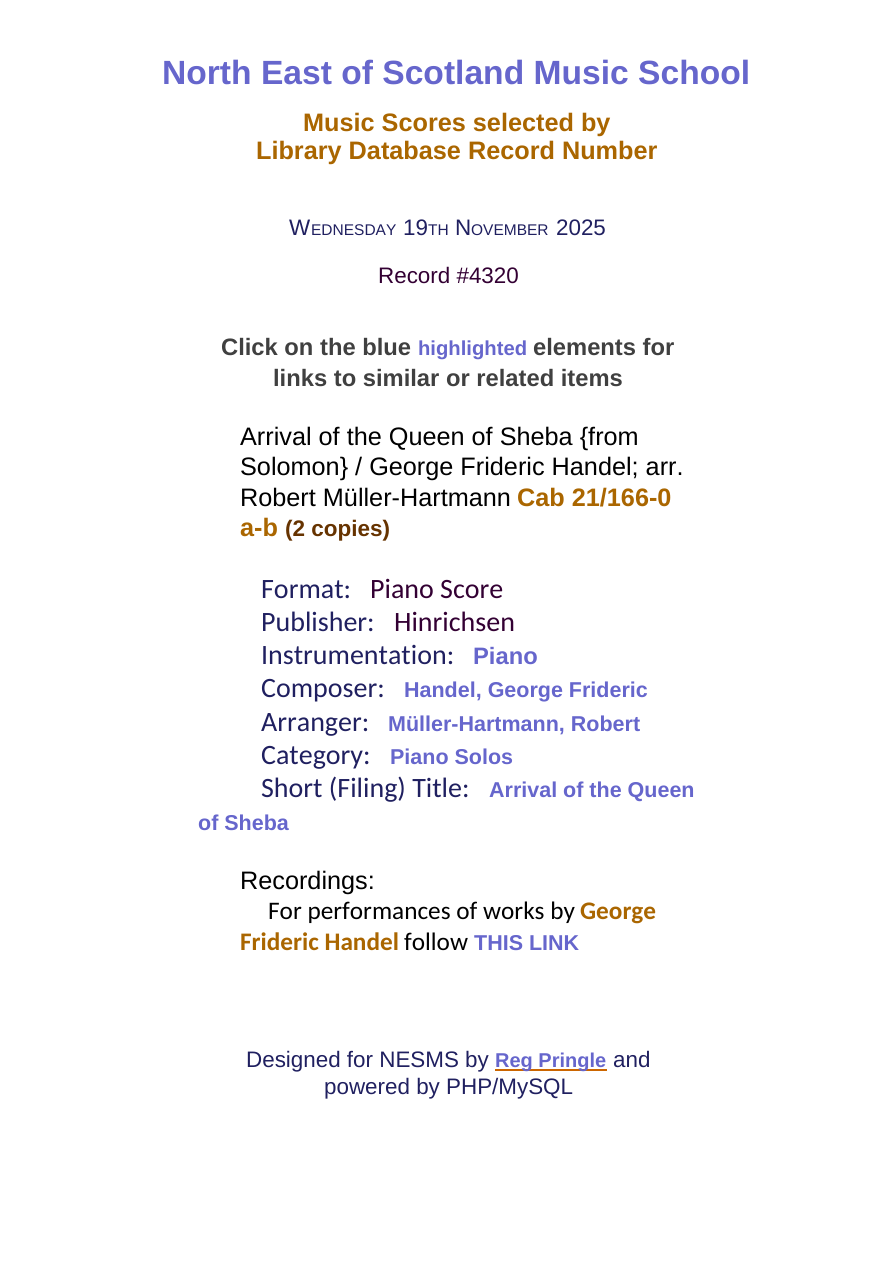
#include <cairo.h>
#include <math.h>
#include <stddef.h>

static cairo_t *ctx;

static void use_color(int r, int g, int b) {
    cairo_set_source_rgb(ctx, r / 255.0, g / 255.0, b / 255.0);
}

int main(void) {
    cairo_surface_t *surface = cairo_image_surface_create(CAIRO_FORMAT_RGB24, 896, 1271);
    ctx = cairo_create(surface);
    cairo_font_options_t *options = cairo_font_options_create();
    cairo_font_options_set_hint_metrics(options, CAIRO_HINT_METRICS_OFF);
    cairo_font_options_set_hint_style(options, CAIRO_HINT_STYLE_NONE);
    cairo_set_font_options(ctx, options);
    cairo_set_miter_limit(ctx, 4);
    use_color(255, 255, 255);
    cairo_paint(ctx);
    cairo_select_font_face(ctx, "Liberation Sans", CAIRO_FONT_SLANT_NORMAL, CAIRO_FONT_WEIGHT_BOLD);
    cairo_set_font_size(ctx, 33.6);
    use_color(102, 102, 204);
    cairo_move_to(ctx, 162, 84);
    cairo_show_text(ctx, "North East of Scotland Music School");
    cairo_set_font_size(ctx, 25.25);
    use_color(170, 102, 0);
    cairo_move_to(ctx, 303, 131);
    cairo_show_text(ctx, "Music Scores selected by");
    cairo_move_to(ctx, 256, 159);
    cairo_show_text(ctx, "Library Database Record Number");
    cairo_select_font_face(ctx, "Liberation Sans", CAIRO_FONT_SLANT_NORMAL, CAIRO_FONT_WEIGHT_NORMAL);
    cairo_set_font_size(ctx, 22.4);
    use_color(32, 32, 96);
    cairo_move_to(ctx, 289, 235);
    cairo_show_text(ctx, "W");
    cairo_set_font_size(ctx, 15.5);
    cairo_move_to(ctx, 311, 235);
    cairo_show_text(ctx, "EDNESDAY");
    cairo_set_font_size(ctx, 22.4);
    cairo_move_to(ctx, 403, 235);
    cairo_show_text(ctx, "19");
    cairo_set_font_size(ctx, 15.5);
    cairo_move_to(ctx, 428, 235);
    cairo_show_text(ctx, "TH");
    cairo_set_font_size(ctx, 22.4);
    cairo_move_to(ctx, 455, 235);
    cairo_show_text(ctx, "N");
    cairo_set_font_size(ctx, 15.5);
    cairo_move_to(ctx, 471, 235);
    cairo_show_text(ctx, "OVEMBER");
    cairo_set_font_size(ctx, 22.4);
    cairo_move_to(ctx, 556, 235);
    cairo_show_text(ctx, "2025");
    use_color(51, 0, 51);
    cairo_move_to(ctx, 378, 283);
    cairo_show_text(ctx, "Record #4320");
    cairo_select_font_face(ctx, "Liberation Sans", CAIRO_FONT_SLANT_NORMAL, CAIRO_FONT_WEIGHT_BOLD);
    cairo_set_font_size(ctx, 23.75);
    use_color(64, 64, 64);
    cairo_move_to(ctx, 221, 355);
    cairo_show_text(ctx, "Click on the blue");
    cairo_set_font_size(ctx, 20.25);
    use_color(102, 102, 204);
    cairo_move_to(ctx, 418, 355);
    cairo_show_text(ctx, "highlighted");
    cairo_set_font_size(ctx, 23.75);
    use_color(64, 64, 64);
    cairo_move_to(ctx, 533, 355);
    cairo_show_text(ctx, "elements for");
    cairo_move_to(ctx, 273, 386);
    cairo_show_text(ctx, "links to similar or related items");
    cairo_select_font_face(ctx, "Liberation Sans", CAIRO_FONT_SLANT_NORMAL, CAIRO_FONT_WEIGHT_NORMAL);
    cairo_set_font_size(ctx, 25.25);
    use_color(0, 0, 0);
    cairo_move_to(ctx, 240, 445);
    cairo_show_text(ctx, "Arrival of the Queen of Sheba {from");
    cairo_move_to(ctx, 240, 475);
    cairo_show_text(ctx, "Solomon} / George Frideric Handel; arr.");
    cairo_move_to(ctx, 240, 506);
    cairo_show_text(ctx, "Robert Müller-Hartmann");
    cairo_select_font_face(ctx, "Liberation Sans", CAIRO_FONT_SLANT_NORMAL, CAIRO_FONT_WEIGHT_BOLD);
    use_color(170, 102, 0);
    cairo_move_to(ctx, 517, 506);
    cairo_show_text(ctx, "Cab 21/166-0");
    cairo_move_to(ctx, 240, 536);
    cairo_show_text(ctx, "a-b");
    cairo_set_font_size(ctx, 22.5);
    use_color(102, 51, 0);
    cairo_move_to(ctx, 285, 536);
    cairo_show_text(ctx, "(2 copies)");
    cairo_select_font_face(ctx, "Carlito", CAIRO_FONT_SLANT_NORMAL, CAIRO_FONT_WEIGHT_NORMAL);
    cairo_set_font_size(ctx, 28);
    use_color(32, 32, 96);
    cairo_move_to(ctx, 261, 598);
    cairo_show_text(ctx, "Format:");
    use_color(51, 0, 51);
    cairo_move_to(ctx, 370, 598);
    cairo_show_text(ctx, "Piano Score");
    use_color(32, 32, 96);
    cairo_move_to(ctx, 261, 631);
    cairo_show_text(ctx, "Publisher:");
    use_color(51, 0, 51);
    cairo_move_to(ctx, 394, 631);
    cairo_show_text(ctx, "Hinrichsen");
    use_color(32, 32, 96);
    cairo_move_to(ctx, 261, 664);
    cairo_show_text(ctx, "Instrumentation:");
    cairo_select_font_face(ctx, "Liberation Sans", CAIRO_FONT_SLANT_NORMAL, CAIRO_FONT_WEIGHT_BOLD);
    cairo_set_font_size(ctx, 23.75);
    use_color(102, 102, 204);
    cairo_move_to(ctx, 473, 664);
    cairo_show_text(ctx, "Piano");
    cairo_select_font_face(ctx, "Carlito", CAIRO_FONT_SLANT_NORMAL, CAIRO_FONT_WEIGHT_NORMAL);
    cairo_set_font_size(ctx, 28);
    use_color(32, 32, 96);
    cairo_move_to(ctx, 261, 697);
    cairo_show_text(ctx, "Composer:");
    cairo_select_font_face(ctx, "Liberation Sans", CAIRO_FONT_SLANT_NORMAL, CAIRO_FONT_WEIGHT_BOLD);
    cairo_set_font_size(ctx, 21.5);
    use_color(102, 102, 204);
    cairo_move_to(ctx, 404, 697);
    cairo_show_text(ctx, "Handel, George Frideric");
    cairo_select_font_face(ctx, "Carlito", CAIRO_FONT_SLANT_NORMAL, CAIRO_FONT_WEIGHT_NORMAL);
    cairo_set_font_size(ctx, 28);
    use_color(32, 32, 96);
    cairo_move_to(ctx, 261, 731);
    cairo_show_text(ctx, "Arranger:");
    cairo_select_font_face(ctx, "Liberation Sans", CAIRO_FONT_SLANT_NORMAL, CAIRO_FONT_WEIGHT_BOLD);
    cairo_set_font_size(ctx, 21.5);
    use_color(102, 102, 204);
    cairo_move_to(ctx, 388, 731);
    cairo_show_text(ctx, "Müller-Hartmann, Robert");
    cairo_select_font_face(ctx, "Carlito", CAIRO_FONT_SLANT_NORMAL, CAIRO_FONT_WEIGHT_NORMAL);
    cairo_set_font_size(ctx, 28);
    use_color(32, 32, 96);
    cairo_move_to(ctx, 261, 764);
    cairo_show_text(ctx, "Category:");
    cairo_select_font_face(ctx, "Liberation Sans", CAIRO_FONT_SLANT_NORMAL, CAIRO_FONT_WEIGHT_BOLD);
    cairo_set_font_size(ctx, 21.5);
    use_color(102, 102, 204);
    cairo_move_to(ctx, 390, 764);
    cairo_show_text(ctx, "Piano Solos");
    cairo_select_font_face(ctx, "Carlito", CAIRO_FONT_SLANT_NORMAL, CAIRO_FONT_WEIGHT_NORMAL);
    cairo_set_font_size(ctx, 28);
    use_color(32, 32, 96);
    cairo_move_to(ctx, 261, 797);
    cairo_show_text(ctx, "Short (Filing) Title:");
    cairo_select_font_face(ctx, "Liberation Sans", CAIRO_FONT_SLANT_NORMAL, CAIRO_FONT_WEIGHT_BOLD);
    cairo_set_font_size(ctx, 21.5);
    use_color(102, 102, 204);
    cairo_move_to(ctx, 489, 797);
    cairo_show_text(ctx, "Arrival of the Queen");
    cairo_move_to(ctx, 198, 830);
    cairo_show_text(ctx, "of Sheba");
    cairo_select_font_face(ctx, "Liberation Sans", CAIRO_FONT_SLANT_NORMAL, CAIRO_FONT_WEIGHT_NORMAL);
    cairo_set_font_size(ctx, 25.25);
    use_color(0, 0, 0);
    cairo_move_to(ctx, 240, 889);
    cairo_show_text(ctx, "Recordings:");
    cairo_select_font_face(ctx, "Carlito", CAIRO_FONT_SLANT_NORMAL, CAIRO_FONT_WEIGHT_NORMAL);
    cairo_move_to(ctx, 268, 919);
    cairo_show_text(ctx, "For performances of works by");
    cairo_select_font_face(ctx, "Carlito", CAIRO_FONT_SLANT_NORMAL, CAIRO_FONT_WEIGHT_BOLD);
    use_color(170, 102, 0);
    cairo_move_to(ctx, 580, 919);
    cairo_show_text(ctx, "George");
    cairo_move_to(ctx, 240, 950);
    cairo_show_text(ctx, "Frideric Handel");
    cairo_select_font_face(ctx, "Carlito", CAIRO_FONT_SLANT_NORMAL, CAIRO_FONT_WEIGHT_NORMAL);
    use_color(0, 0, 0);
    cairo_move_to(ctx, 404, 950);
    cairo_show_text(ctx, "follow");
    cairo_select_font_face(ctx, "Liberation Sans", CAIRO_FONT_SLANT_NORMAL, CAIRO_FONT_WEIGHT_BOLD);
    cairo_set_font_size(ctx, 21.5);
    use_color(102, 102, 204);
    cairo_move_to(ctx, 474, 950);
    cairo_show_text(ctx, "THIS LINK");
    cairo_select_font_face(ctx, "Liberation Sans", CAIRO_FONT_SLANT_NORMAL, CAIRO_FONT_WEIGHT_NORMAL);
    cairo_set_font_size(ctx, 22.4);
    use_color(32, 32, 96);
    cairo_move_to(ctx, 246, 1067);
    cairo_show_text(ctx, "Designed for NESMS by");
    use_color(204, 102, 0);
    cairo_rectangle(ctx, 495, 1069, 112, 2);
    cairo_fill(ctx);
    cairo_select_font_face(ctx, "Liberation Sans", CAIRO_FONT_SLANT_NORMAL, CAIRO_FONT_WEIGHT_BOLD);
    cairo_set_font_size(ctx, 20);
    use_color(102, 102, 204);
    cairo_move_to(ctx, 495, 1067);
    cairo_show_text(ctx, "Reg Pringle");
    cairo_select_font_face(ctx, "Liberation Sans", CAIRO_FONT_SLANT_NORMAL, CAIRO_FONT_WEIGHT_NORMAL);
    cairo_set_font_size(ctx, 22.4);
    use_color(32, 32, 96);
    cairo_move_to(ctx, 613, 1067);
    cairo_show_text(ctx, "and");
    cairo_move_to(ctx, 324, 1094);
    cairo_show_text(ctx, "powered by PHP/MySQL");
    cairo_surface_write_to_png(surface, "result.png");
    cairo_font_options_destroy(options);
    cairo_destroy(ctx);
    cairo_surface_destroy(surface);
    return 0;
}
